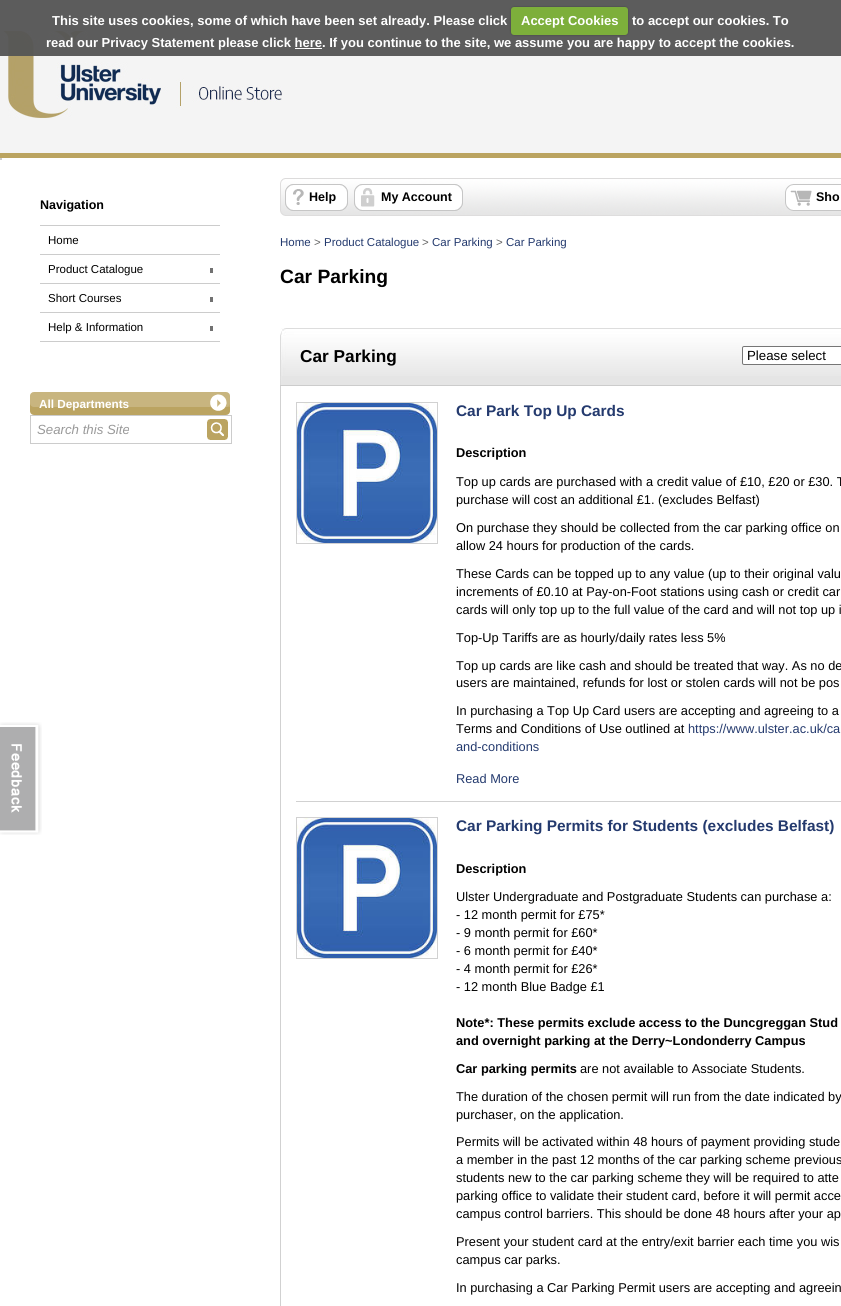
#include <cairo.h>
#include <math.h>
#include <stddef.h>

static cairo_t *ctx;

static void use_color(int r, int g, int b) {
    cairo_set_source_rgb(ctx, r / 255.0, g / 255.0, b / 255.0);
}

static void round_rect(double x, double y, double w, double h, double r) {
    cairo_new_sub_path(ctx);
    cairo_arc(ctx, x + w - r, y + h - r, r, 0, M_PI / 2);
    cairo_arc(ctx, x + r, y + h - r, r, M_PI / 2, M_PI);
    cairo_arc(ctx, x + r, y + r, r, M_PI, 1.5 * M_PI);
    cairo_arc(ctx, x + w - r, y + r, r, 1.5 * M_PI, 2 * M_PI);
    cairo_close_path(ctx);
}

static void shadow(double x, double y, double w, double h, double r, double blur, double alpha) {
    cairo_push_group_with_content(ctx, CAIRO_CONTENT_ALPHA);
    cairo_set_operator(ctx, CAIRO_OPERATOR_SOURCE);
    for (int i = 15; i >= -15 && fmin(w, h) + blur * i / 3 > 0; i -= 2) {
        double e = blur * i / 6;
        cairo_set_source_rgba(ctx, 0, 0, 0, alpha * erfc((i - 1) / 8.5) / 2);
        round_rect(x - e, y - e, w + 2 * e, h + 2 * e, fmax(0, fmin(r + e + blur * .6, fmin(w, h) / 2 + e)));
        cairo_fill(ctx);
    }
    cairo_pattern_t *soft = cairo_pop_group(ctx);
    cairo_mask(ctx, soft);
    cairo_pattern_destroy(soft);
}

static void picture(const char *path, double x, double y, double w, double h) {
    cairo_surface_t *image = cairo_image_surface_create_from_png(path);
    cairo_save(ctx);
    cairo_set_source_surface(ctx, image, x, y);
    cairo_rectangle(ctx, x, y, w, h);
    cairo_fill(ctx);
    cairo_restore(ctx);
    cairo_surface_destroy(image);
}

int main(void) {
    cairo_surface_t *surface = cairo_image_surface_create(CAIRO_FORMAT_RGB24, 841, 1306);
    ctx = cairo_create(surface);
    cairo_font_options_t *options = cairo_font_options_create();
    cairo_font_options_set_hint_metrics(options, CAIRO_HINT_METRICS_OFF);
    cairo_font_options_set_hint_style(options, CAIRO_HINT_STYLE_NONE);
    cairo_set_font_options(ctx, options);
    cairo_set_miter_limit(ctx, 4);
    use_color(244, 244, 244);
    cairo_paint(ctx);
    picture("img2.png", 3, 31, 279, 87);
    cairo_set_source_rgba(ctx, 0.337, 0.337, 0.337, 0.95);
    cairo_rectangle(ctx, 0, 0, 841, 56);
    cairo_fill(ctx);
    cairo_select_font_face(ctx, "Liberation Sans", CAIRO_FONT_SLANT_NORMAL, CAIRO_FONT_WEIGHT_BOLD);
    cairo_set_font_size(ctx, 13);
    use_color(255, 255, 255);
    cairo_move_to(ctx, 52, 25);
    cairo_show_text(ctx, "This site uses cookies, some of which have been set already. Please click");
    use_color(0, 0, 0);
    shadow(511, 7, 117, 28, 3, 1, 0.25);
    use_color(125, 175, 59);
    round_rect(511, 7, 117, 28, 3);
    cairo_fill(ctx);
    use_color(255, 255, 255);
    cairo_move_to(ctx, 521, 25);
    cairo_show_text(ctx, "Accept Cookies");
    cairo_move_to(ctx, 632, 25);
    cairo_show_text(ctx, "to accept our cookies. To");
    cairo_move_to(ctx, 46, 47);
    cairo_show_text(ctx, "read our Privacy Statement please click here. If you continue to the site, we assume you are happy to accept the cookies.");
    cairo_rectangle(ctx, 295, 48, 27, 1);
    cairo_fill(ctx);
    cairo_rectangle(ctx, 0, 158, 841, 1148);
    cairo_fill(ctx);
    picture("img1.png", 0, 722, 42, 113);
    use_color(187, 164, 97);
    cairo_rectangle(ctx, 0, 153, 841, 5);
    cairo_fill(ctx);
    use_color(204, 204, 204);
    cairo_rectangle(ctx, 0, 158, 2, 2);
    cairo_fill(ctx);
    cairo_set_font_size(ctx, 12.5);
    use_color(0, 0, 0);
    cairo_move_to(ctx, 40, 209);
    cairo_show_text(ctx, "Navigation");
    use_color(204, 204, 204);
    cairo_rectangle(ctx, 40, 225, 180, 1);
    cairo_fill(ctx);
    cairo_rectangle(ctx, 40, 254, 180, 1);
    cairo_fill(ctx);
    cairo_select_font_face(ctx, "Liberation Sans", CAIRO_FONT_SLANT_NORMAL, CAIRO_FONT_WEIGHT_NORMAL);
    cairo_set_font_size(ctx, 11.5);
    use_color(0, 0, 0);
    cairo_move_to(ctx, 48, 244);
    cairo_show_text(ctx, "Home");
    use_color(204, 204, 204);
    cairo_rectangle(ctx, 40, 283, 180, 1);
    cairo_fill(ctx);
    use_color(113, 113, 113);
    cairo_rectangle(ctx, 210, 268, 3, 5);
    cairo_fill(ctx);
    use_color(0, 0, 0);
    cairo_move_to(ctx, 48, 273);
    cairo_show_text(ctx, "Product Catalogue");
    use_color(204, 204, 204);
    cairo_rectangle(ctx, 40, 312, 180, 1);
    cairo_fill(ctx);
    use_color(113, 113, 113);
    cairo_rectangle(ctx, 210, 297, 3, 5);
    cairo_fill(ctx);
    use_color(0, 0, 0);
    cairo_move_to(ctx, 48, 302);
    cairo_show_text(ctx, "Short Courses");
    use_color(204, 204, 204);
    cairo_rectangle(ctx, 40, 341, 180, 1);
    cairo_fill(ctx);
    use_color(113, 113, 113);
    cairo_rectangle(ctx, 210, 326, 3, 5);
    cairo_fill(ctx);
    use_color(0, 0, 0);
    cairo_move_to(ctx, 48, 331);
    cairo_show_text(ctx, "Help & Information");
    use_color(187, 164, 97);
    cairo_rectangle(ctx, 30, 392, 200, 23);
    cairo_fill(ctx);
    picture("img3.png", 30, 392, 200, 23);
    picture("img4.png", 39, 392, 191, 23);
    cairo_select_font_face(ctx, "Liberation Sans", CAIRO_FONT_SLANT_NORMAL, CAIRO_FONT_WEIGHT_BOLD);
    cairo_set_font_size(ctx, 11.75);
    use_color(255, 255, 255);
    cairo_move_to(ctx, 39, 408);
    cairo_show_text(ctx, "All Departments");
    cairo_rectangle(ctx, 30.5, 415.5, 201, 28);
    use_color(204, 204, 204);
    cairo_set_line_width(ctx, 1);
    cairo_stroke(ctx);
    cairo_select_font_face(ctx, "Liberation Sans", CAIRO_FONT_SLANT_ITALIC, CAIRO_FONT_WEIGHT_NORMAL);
    cairo_set_font_size(ctx, 13.25);
    use_color(153, 153, 153);
    cairo_move_to(ctx, 37, 434);
    cairo_show_text(ctx, "Search this Site");
    use_color(187, 164, 97);
    cairo_rectangle(ctx, 207, 419, 21, 21);
    cairo_fill(ctx);
    picture("img5.png", 207, 419, 21, 21);
    picture("img6.png", 280, 178, 561, 38);
    picture("img7.png", 285, 184, 63, 27);
    cairo_select_font_face(ctx, "Liberation Sans", CAIRO_FONT_SLANT_NORMAL, CAIRO_FONT_WEIGHT_BOLD);
    cairo_set_font_size(ctx, 12.5);
    use_color(0, 0, 0);
    cairo_move_to(ctx, 309, 201);
    cairo_show_text(ctx, "Help");
    picture("img8.png", 354, 184, 109, 27);
    cairo_move_to(ctx, 381, 201);
    cairo_show_text(ctx, "My Account");
    picture("img9.png", 785, 184, 56, 27);
    cairo_move_to(ctx, 816, 201);
    cairo_show_text(ctx, "Sho");
    cairo_select_font_face(ctx, "Liberation Sans", CAIRO_FONT_SLANT_NORMAL, CAIRO_FONT_WEIGHT_NORMAL);
    cairo_set_font_size(ctx, 11.5);
    use_color(36, 58, 110);
    cairo_move_to(ctx, 280, 246);
    cairo_show_text(ctx, "Home");
    use_color(102, 102, 102);
    cairo_move_to(ctx, 314, 246);
    cairo_show_text(ctx, ">");
    use_color(36, 58, 110);
    cairo_move_to(ctx, 324, 246);
    cairo_show_text(ctx, "Product Catalogue");
    use_color(102, 102, 102);
    cairo_move_to(ctx, 422, 246);
    cairo_show_text(ctx, ">");
    use_color(36, 58, 110);
    cairo_move_to(ctx, 432, 246);
    cairo_show_text(ctx, "Car Parking");
    use_color(102, 102, 102);
    cairo_move_to(ctx, 496, 246);
    cairo_show_text(ctx, ">");
    use_color(36, 58, 110);
    cairo_move_to(ctx, 506, 246);
    cairo_show_text(ctx, "Car Parking");
    cairo_select_font_face(ctx, "Liberation Sans", CAIRO_FONT_SLANT_NORMAL, CAIRO_FONT_WEIGHT_BOLD);
    cairo_set_font_size(ctx, 19.25);
    use_color(0, 0, 0);
    cairo_move_to(ctx, 280, 283);
    cairo_show_text(ctx, "Car Parking");
    cairo_rectangle(ctx, 280.5, 328.5, 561, 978);
    use_color(209, 209, 209);
    cairo_stroke(ctx);
    picture("img10.png", 280, 328, 2, 57);
    use_color(204, 204, 204);
    cairo_rectangle(ctx, 280, 385, 561, 1);
    cairo_fill(ctx);
    use_color(229, 229, 229);
    cairo_rectangle(ctx, 282, 376, 559, 9);
    cairo_fill(ctx);
    picture("img11.png", 282, 328, 559, 48);
    cairo_set_font_size(ctx, 17.25);
    use_color(0, 0, 0);
    cairo_move_to(ctx, 300, 362);
    cairo_show_text(ctx, "Car Parking");
    use_color(255, 255, 255);
    round_rect(742.5, 346.5, 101, 18, 1.5);
    cairo_fill_preserve(ctx);
    use_color(118, 118, 118);
    cairo_stroke(ctx);
    cairo_select_font_face(ctx, "Liberation Sans", CAIRO_FONT_SLANT_NORMAL, CAIRO_FONT_WEIGHT_NORMAL);
    cairo_set_font_size(ctx, 13.25);
    use_color(0, 0, 0);
    cairo_move_to(ctx, 747, 360);
    cairo_show_text(ctx, "Please select");
    cairo_rectangle(ctx, 296.5, 402.5, 141, 141);
    use_color(209, 209, 209);
    cairo_stroke(ctx);
    picture("img12.png", 297, 403, 140, 140);
    cairo_select_font_face(ctx, "Liberation Sans", CAIRO_FONT_SLANT_NORMAL, CAIRO_FONT_WEIGHT_BOLD);
    cairo_set_font_size(ctx, 15.4);
    use_color(36, 58, 110);
    cairo_move_to(ctx, 456, 416);
    cairo_show_text(ctx, "Car Park Top Up Cards");
    cairo_set_font_size(ctx, 12.8);
    use_color(0, 0, 0);
    cairo_move_to(ctx, 456, 457);
    cairo_show_text(ctx, "Description");
    cairo_select_font_face(ctx, "Liberation Sans", CAIRO_FONT_SLANT_NORMAL, CAIRO_FONT_WEIGHT_NORMAL);
    cairo_move_to(ctx, 456, 486);
    cairo_show_text(ctx, "Top up cards are purchased with a credit value of £10, £20 or £30. T");
    cairo_move_to(ctx, 456, 504);
    cairo_show_text(ctx, "purchase will cost an additional £1. (excludes Belfast)");
    cairo_move_to(ctx, 456, 532);
    cairo_show_text(ctx, "On purchase they should be collected from the car parking office on");
    cairo_move_to(ctx, 456, 550);
    cairo_show_text(ctx, "allow 24 hours for production of the cards.");
    cairo_move_to(ctx, 456, 578);
    cairo_show_text(ctx, "These Cards can be topped up to any value (up to their original valu");
    cairo_move_to(ctx, 456, 596);
    cairo_show_text(ctx, "increments of £0.10 at Pay-on-Foot stations using cash or credit car");
    cairo_move_to(ctx, 456, 614);
    cairo_show_text(ctx, "cards will only top up to the full value of the card and will not top up i");
    cairo_move_to(ctx, 456, 642);
    cairo_show_text(ctx, "Top-Up Tariffs are as hourly/daily rates less 5%");
    cairo_move_to(ctx, 456, 670);
    cairo_show_text(ctx, "Top up cards are like cash and should be treated that way. As no de");
    cairo_move_to(ctx, 456, 687);
    cairo_show_text(ctx, "users are maintained, refunds for lost or stolen cards will not be pos");
    cairo_move_to(ctx, 456, 715);
    cairo_show_text(ctx, "In purchasing a Top Up Card users are accepting and agreeing to a");
    cairo_move_to(ctx, 456, 733);
    cairo_show_text(ctx, "Terms and Conditions of Use outlined at");
    use_color(36, 58, 110);
    cairo_move_to(ctx, 688, 733);
    cairo_show_text(ctx, "https://www.ulster.ac.uk/ca");
    cairo_move_to(ctx, 456, 751);
    cairo_show_text(ctx, "and-conditions");
    cairo_move_to(ctx, 456, 783);
    cairo_show_text(ctx, "Read More");
    use_color(209, 209, 209);
    cairo_rectangle(ctx, 296, 801, 545, 1);
    cairo_fill(ctx);
    cairo_rectangle(ctx, 296.5, 817.5, 141, 141);
    cairo_stroke(ctx);
    picture("img12.png", 297, 818, 140, 140);
    cairo_select_font_face(ctx, "Liberation Sans", CAIRO_FONT_SLANT_NORMAL, CAIRO_FONT_WEIGHT_BOLD);
    cairo_set_font_size(ctx, 15.4);
    use_color(36, 58, 110);
    cairo_move_to(ctx, 456, 831);
    cairo_show_text(ctx, "Car Parking Permits for Students (excludes Belfast)");
    cairo_set_font_size(ctx, 12.8);
    use_color(0, 0, 0);
    cairo_move_to(ctx, 456, 873);
    cairo_show_text(ctx, "Description");
    cairo_select_font_face(ctx, "Liberation Sans", CAIRO_FONT_SLANT_NORMAL, CAIRO_FONT_WEIGHT_NORMAL);
    cairo_move_to(ctx, 456, 901);
    cairo_show_text(ctx, "Ulster Undergraduate and Postgraduate Students can purchase a:");
    cairo_move_to(ctx, 456, 919);
    cairo_show_text(ctx, "- 12 month permit for £75*");
    cairo_move_to(ctx, 456, 937);
    cairo_show_text(ctx, "- 9 month permit for £60*");
    cairo_move_to(ctx, 456, 955);
    cairo_show_text(ctx, "- 6 month permit for £40*");
    cairo_move_to(ctx, 456, 973);
    cairo_show_text(ctx, "- 4 month permit for £26*");
    cairo_move_to(ctx, 456, 991);
    cairo_show_text(ctx, "- 12 month Blue Badge £1");
    cairo_select_font_face(ctx, "Liberation Sans", CAIRO_FONT_SLANT_NORMAL, CAIRO_FONT_WEIGHT_BOLD);
    cairo_move_to(ctx, 456, 1027);
    cairo_show_text(ctx, "Note*: These permits exclude access to the Duncgreggan Stud");
    cairo_move_to(ctx, 456, 1045);
    cairo_show_text(ctx, "and overnight parking at the Derry~Londonderry Campus");
    cairo_move_to(ctx, 456, 1073);
    cairo_show_text(ctx, "Car parking permits");
    cairo_select_font_face(ctx, "Liberation Sans", CAIRO_FONT_SLANT_NORMAL, CAIRO_FONT_WEIGHT_NORMAL);
    cairo_move_to(ctx, 580, 1073);
    cairo_show_text(ctx, "are not available to Associate Students.");
    cairo_move_to(ctx, 456, 1101);
    cairo_show_text(ctx, "The duration of the chosen permit will run from the date indicated by");
    cairo_move_to(ctx, 456, 1119);
    cairo_show_text(ctx, "purchaser, on the application.");
    cairo_move_to(ctx, 456, 1146);
    cairo_show_text(ctx, "Permits will be activated within 48 hours of payment providing stude");
    cairo_move_to(ctx, 456, 1164);
    cairo_show_text(ctx, "a member in the past 12 months of the car parking scheme previous");
    cairo_move_to(ctx, 456, 1182);
    cairo_show_text(ctx, "students new to the car parking scheme they will be required to atte");
    cairo_move_to(ctx, 456, 1200);
    cairo_show_text(ctx, "parking office to validate their student card, before it will permit acce");
    cairo_move_to(ctx, 456, 1218);
    cairo_show_text(ctx, "campus control barriers. This should be done 48 hours after your ap");
    cairo_move_to(ctx, 456, 1246);
    cairo_show_text(ctx, "Present your student card at the entry/exit barrier each time you wis");
    cairo_move_to(ctx, 456, 1264);
    cairo_show_text(ctx, "campus car parks.");
    cairo_move_to(ctx, 456, 1292);
    cairo_show_text(ctx, "In purchasing a Car Parking Permit users are accepting and agreein");
    cairo_surface_write_to_png(surface, "result.png");
    cairo_font_options_destroy(options);
    cairo_destroy(ctx);
    cairo_surface_destroy(surface);
    return 0;
}
